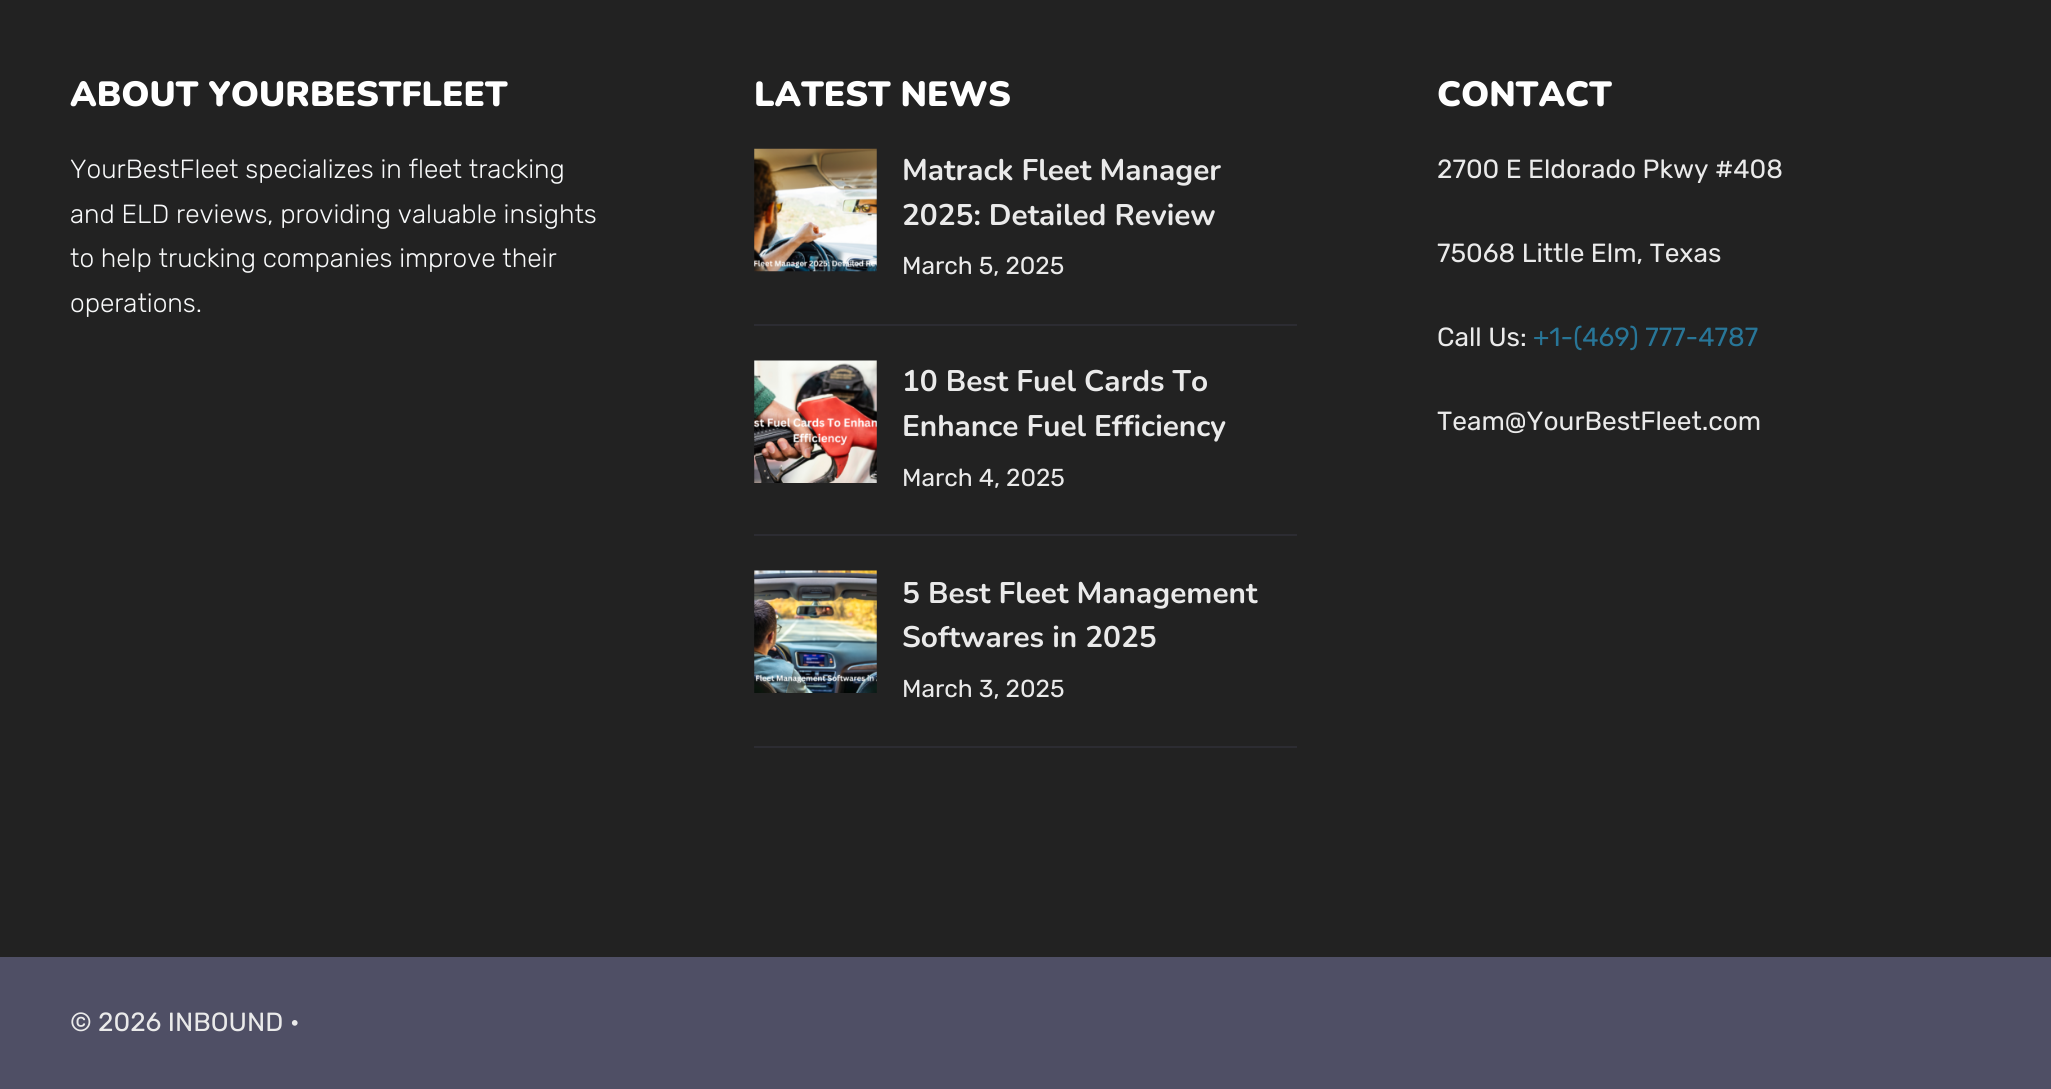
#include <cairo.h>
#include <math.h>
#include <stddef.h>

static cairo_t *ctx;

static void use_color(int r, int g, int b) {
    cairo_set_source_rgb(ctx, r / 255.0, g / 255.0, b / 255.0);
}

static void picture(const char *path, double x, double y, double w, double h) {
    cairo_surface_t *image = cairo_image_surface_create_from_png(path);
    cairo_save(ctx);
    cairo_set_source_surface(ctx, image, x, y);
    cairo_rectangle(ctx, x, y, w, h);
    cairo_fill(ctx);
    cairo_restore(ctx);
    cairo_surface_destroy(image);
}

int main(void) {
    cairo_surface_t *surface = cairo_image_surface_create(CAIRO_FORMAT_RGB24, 2051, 1089);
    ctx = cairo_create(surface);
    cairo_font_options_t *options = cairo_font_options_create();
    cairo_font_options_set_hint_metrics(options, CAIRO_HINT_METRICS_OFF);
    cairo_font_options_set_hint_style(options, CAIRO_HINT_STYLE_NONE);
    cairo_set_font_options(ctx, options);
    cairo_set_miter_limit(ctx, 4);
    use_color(34, 34, 34);
    cairo_paint(ctx);
    cairo_select_font_face(ctx, "Nunito Black", CAIRO_FONT_SLANT_NORMAL, CAIRO_FONT_WEIGHT_NORMAL);
    cairo_set_font_size(ctx, 35);
    use_color(255, 255, 255);
    cairo_move_to(ctx, 70, 106);
    cairo_show_text(ctx, "ABOUT YOURBESTFLEET");
    cairo_select_font_face(ctx, "Rubik Light", CAIRO_FONT_SLANT_NORMAL, CAIRO_FONT_WEIGHT_NORMAL);
    cairo_set_font_size(ctx, 26.25);
    use_color(247, 248, 249);
    cairo_move_to(ctx, 70, 178);
    cairo_show_text(ctx, "YourBestFleet specializes in fleet tracking");
    cairo_move_to(ctx, 70, 223);
    cairo_show_text(ctx, "and ELD reviews, providing valuable insights");
    cairo_move_to(ctx, 70, 267);
    cairo_show_text(ctx, "to help trucking companies improve their");
    cairo_move_to(ctx, 70, 312);
    cairo_show_text(ctx, "operations.");
    cairo_select_font_face(ctx, "Nunito Black", CAIRO_FONT_SLANT_NORMAL, CAIRO_FONT_WEIGHT_NORMAL);
    cairo_set_font_size(ctx, 35);
    use_color(255, 255, 255);
    cairo_move_to(ctx, 754, 106);
    cairo_show_text(ctx, "LATEST NEWS");
    use_color(44, 44, 50);
    cairo_rectangle(ctx, 754, 324, 543, 2);
    cairo_fill(ctx);
    picture("img1.png", 754, 148, 123, 124);
    cairo_select_font_face(ctx, "Nunito", CAIRO_FONT_SLANT_NORMAL, CAIRO_FONT_WEIGHT_BOLD);
    cairo_set_font_size(ctx, 29.75);
    use_color(234, 234, 234);
    cairo_move_to(ctx, 902, 180);
    cairo_show_text(ctx, "Matrack Fleet Manager");
    cairo_move_to(ctx, 902, 225);
    cairo_show_text(ctx, "2025: Detailed Review");
    cairo_select_font_face(ctx, "Rubik", CAIRO_FONT_SLANT_NORMAL, CAIRO_FONT_WEIGHT_NORMAL);
    cairo_set_font_size(ctx, 24.5);
    cairo_move_to(ctx, 902, 274);
    cairo_show_text(ctx, "March 5, 2025");
    use_color(44, 44, 50);
    cairo_rectangle(ctx, 754, 534, 543, 2);
    cairo_fill(ctx);
    picture("img2.png", 754, 360, 123, 123);
    cairo_select_font_face(ctx, "Nunito", CAIRO_FONT_SLANT_NORMAL, CAIRO_FONT_WEIGHT_BOLD);
    cairo_set_font_size(ctx, 29.75);
    use_color(234, 234, 234);
    cairo_move_to(ctx, 902, 391);
    cairo_show_text(ctx, "10 Best Fuel Cards To");
    cairo_move_to(ctx, 902, 436);
    cairo_show_text(ctx, "Enhance Fuel Efficiency");
    cairo_select_font_face(ctx, "Rubik", CAIRO_FONT_SLANT_NORMAL, CAIRO_FONT_WEIGHT_NORMAL);
    cairo_set_font_size(ctx, 24.5);
    cairo_move_to(ctx, 902, 486);
    cairo_show_text(ctx, "March 4, 2025");
    use_color(44, 44, 50);
    cairo_rectangle(ctx, 754, 746, 543, 2);
    cairo_fill(ctx);
    picture("img3.png", 754, 570, 123, 123);
    cairo_select_font_face(ctx, "Nunito", CAIRO_FONT_SLANT_NORMAL, CAIRO_FONT_WEIGHT_BOLD);
    cairo_set_font_size(ctx, 29.75);
    use_color(234, 234, 234);
    cairo_move_to(ctx, 902, 603);
    cairo_show_text(ctx, "5 Best Fleet Management");
    cairo_move_to(ctx, 902, 647);
    cairo_show_text(ctx, "Softwares in 2025");
    cairo_select_font_face(ctx, "Rubik", CAIRO_FONT_SLANT_NORMAL, CAIRO_FONT_WEIGHT_NORMAL);
    cairo_set_font_size(ctx, 24.5);
    cairo_move_to(ctx, 902, 697);
    cairo_show_text(ctx, "March 3, 2025");
    cairo_select_font_face(ctx, "Nunito Black", CAIRO_FONT_SLANT_NORMAL, CAIRO_FONT_WEIGHT_NORMAL);
    cairo_set_font_size(ctx, 35);
    use_color(255, 255, 255);
    cairo_move_to(ctx, 1437, 106);
    cairo_show_text(ctx, "CONTACT");
    cairo_select_font_face(ctx, "Rubik", CAIRO_FONT_SLANT_NORMAL, CAIRO_FONT_WEIGHT_NORMAL);
    cairo_set_font_size(ctx, 26.25);
    use_color(234, 234, 234);
    cairo_move_to(ctx, 1437, 178);
    cairo_show_text(ctx, "2700 E Eldorado Pkwy #408");
    cairo_move_to(ctx, 1437, 262);
    cairo_show_text(ctx, "75068 Little Elm, Texas");
    cairo_move_to(ctx, 1437, 346);
    cairo_show_text(ctx, "Call Us:");
    use_color(40, 118, 152);
    cairo_move_to(ctx, 1533, 346);
    cairo_show_text(ctx, "+1-(469) 777-4787");
    use_color(234, 234, 234);
    cairo_move_to(ctx, 1437, 430);
    cairo_show_text(ctx, "Team@YourBestFleet.com");
    use_color(79, 79, 101);
    cairo_rectangle(ctx, 0, 957, 2051, 132);
    cairo_fill(ctx);
    use_color(234, 234, 234);
    cairo_move_to(ctx, 70, 1031);
    cairo_show_text(ctx, "© 2026 INBOUND •");
    cairo_surface_write_to_png(surface, "result.png");
    cairo_font_options_destroy(options);
    cairo_destroy(ctx);
    cairo_surface_destroy(surface);
    return 0;
}
